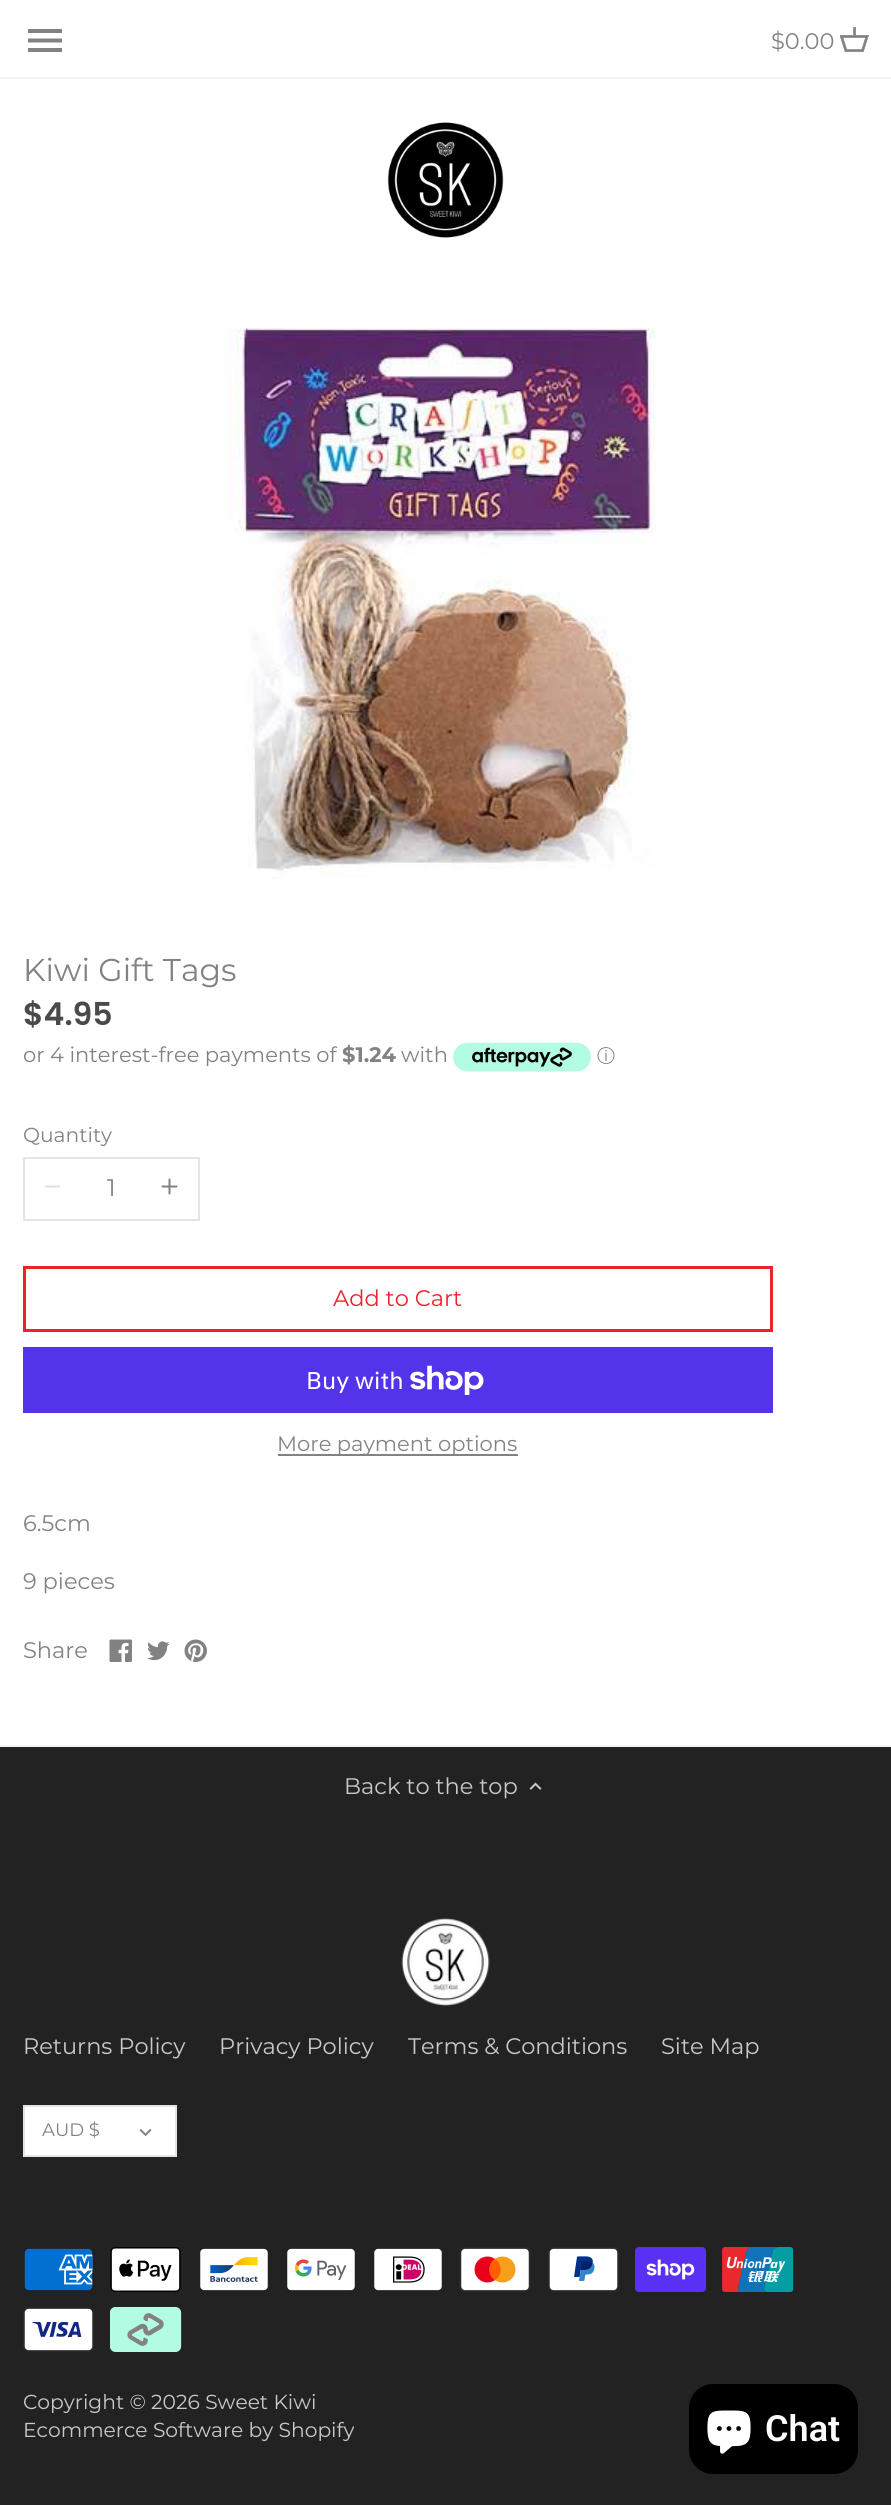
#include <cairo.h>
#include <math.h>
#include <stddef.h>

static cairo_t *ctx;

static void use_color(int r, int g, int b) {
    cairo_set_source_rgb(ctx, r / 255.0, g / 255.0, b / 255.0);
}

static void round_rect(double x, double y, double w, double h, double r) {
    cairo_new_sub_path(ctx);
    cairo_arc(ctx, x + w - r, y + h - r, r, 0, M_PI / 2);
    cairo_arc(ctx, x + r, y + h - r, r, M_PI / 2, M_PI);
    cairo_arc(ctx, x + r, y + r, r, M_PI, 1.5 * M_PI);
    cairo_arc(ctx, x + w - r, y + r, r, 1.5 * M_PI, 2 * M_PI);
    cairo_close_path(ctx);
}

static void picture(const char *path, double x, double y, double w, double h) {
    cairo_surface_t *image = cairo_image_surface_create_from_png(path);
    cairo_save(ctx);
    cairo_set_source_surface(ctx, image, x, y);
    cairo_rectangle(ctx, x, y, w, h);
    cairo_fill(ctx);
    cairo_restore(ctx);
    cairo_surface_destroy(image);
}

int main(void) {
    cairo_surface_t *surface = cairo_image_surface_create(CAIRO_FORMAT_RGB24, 891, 2505);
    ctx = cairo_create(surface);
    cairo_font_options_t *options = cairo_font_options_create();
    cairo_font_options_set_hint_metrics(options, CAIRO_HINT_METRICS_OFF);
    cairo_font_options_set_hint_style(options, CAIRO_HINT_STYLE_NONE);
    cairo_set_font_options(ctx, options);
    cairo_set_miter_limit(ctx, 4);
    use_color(34, 34, 34);
    cairo_paint(ctx);
    use_color(255, 255, 255);
    cairo_rectangle(ctx, 0, 79, 891, 1666);
    cairo_fill(ctx);
    cairo_rectangle(ctx, 0, 0, 891, 77);
    cairo_fill(ctx);
    use_color(244, 244, 244);
    cairo_rectangle(ctx, 0, 77, 891, 2);
    cairo_fill(ctx);
    use_color(130, 130, 130);
    cairo_new_path(ctx);
    cairo_move_to(ctx, 28, 52);
    cairo_line_to(ctx, 62, 52);
    cairo_line_to(ctx, 62, 48);
    cairo_line_to(ctx, 28, 48);
    cairo_close_path(ctx);
    cairo_move_to(ctx, 28, 42.5);
    cairo_line_to(ctx, 62, 42.5);
    cairo_line_to(ctx, 62, 38.5);
    cairo_line_to(ctx, 28, 38.5);
    cairo_close_path(ctx);
    cairo_move_to(ctx, 28, 29);
    cairo_line_to(ctx, 28, 33);
    cairo_line_to(ctx, 62, 33);
    cairo_line_to(ctx, 62, 29);
    cairo_close_path(ctx);
    cairo_fill(ctx);
    cairo_select_font_face(ctx, "Montserrat", CAIRO_FONT_SLANT_NORMAL, CAIRO_FONT_WEIGHT_NORMAL);
    cairo_set_font_size(ctx, 22.5);
    cairo_move_to(ctx, 771, 49);
    cairo_show_text(ctx, "$0.00");
    picture("img1.png", 840, 27, 29, 25);
    picture("img2.png", 387, 122, 117, 116);
    picture("img3.png", 224, 328, 432, 551);
    cairo_set_font_size(ctx, 31.5);
    cairo_move_to(ctx, 23, 981);
    cairo_show_text(ctx, "Kiwi Gift Tags");
    cairo_select_font_face(ctx, "Poppins SemiBold", CAIRO_FONT_SLANT_NORMAL, CAIRO_FONT_WEIGHT_NORMAL);
    use_color(74, 74, 74);
    cairo_move_to(ctx, 23, 1025);
    cairo_show_text(ctx, "$4.95");
    cairo_select_font_face(ctx, "Montserrat", CAIRO_FONT_SLANT_NORMAL, CAIRO_FONT_WEIGHT_NORMAL);
    cairo_set_font_size(ctx, 21);
    use_color(130, 130, 130);
    cairo_move_to(ctx, 23, 1062);
    cairo_show_text(ctx, "or 4 interest-free payments of");
    cairo_select_font_face(ctx, "Montserrat", CAIRO_FONT_SLANT_NORMAL, CAIRO_FONT_WEIGHT_BOLD);
    cairo_move_to(ctx, 342, 1062);
    cairo_show_text(ctx, "$1.24");
    cairo_select_font_face(ctx, "Montserrat", CAIRO_FONT_SLANT_NORMAL, CAIRO_FONT_WEIGHT_NORMAL);
    cairo_move_to(ctx, 401, 1062);
    cairo_show_text(ctx, "with");
    picture("img4.png", 453, 1042, 138, 30);
    cairo_select_font_face(ctx, "WenQuanYi Zen Hei Medium", CAIRO_FONT_SLANT_NORMAL, CAIRO_FONT_WEIGHT_NORMAL);
    cairo_set_font_size(ctx, 18);
    cairo_move_to(ctx, 597, 1062);
    cairo_show_text(ctx, "ⓘ");
    cairo_select_font_face(ctx, "Montserrat", CAIRO_FONT_SLANT_NORMAL, CAIRO_FONT_WEIGHT_NORMAL);
    cairo_set_font_size(ctx, 20.25);
    cairo_move_to(ctx, 23, 1142);
    cairo_show_text(ctx, "Quantity");
    cairo_rectangle(ctx, 24, 1158, 175, 62);
    use_color(229, 229, 229);
    cairo_stroke(ctx);
    cairo_new_path(ctx);
    cairo_move_to(ctx, 45.5, 1186.5);
    cairo_line_to(ctx, 59.5, 1186.5);
    use_color(224, 224, 224);
    cairo_set_line_cap(ctx, CAIRO_LINE_CAP_ROUND);
    cairo_set_line_join(ctx, CAIRO_LINE_JOIN_ROUND);
    cairo_stroke(ctx);
    cairo_set_font_size(ctx, 24);
    use_color(130, 130, 130);
    cairo_move_to(ctx, 107, 1196);
    cairo_show_text(ctx, "1");
    cairo_new_path(ctx);
    cairo_move_to(ctx, 169.5, 1179.5);
    cairo_line_to(ctx, 169.5, 1193.5);
    cairo_move_to(ctx, 162.5, 1186.5);
    cairo_line_to(ctx, 176.5, 1186.5);
    cairo_stroke(ctx);
    cairo_rectangle(ctx, 24.5, 1267.5, 747, 63);
    use_color(238, 34, 46);
    cairo_set_line_width(ctx, 3);
    cairo_set_line_cap(ctx, CAIRO_LINE_CAP_BUTT);
    cairo_set_line_join(ctx, CAIRO_LINE_JOIN_MITER);
    cairo_stroke(ctx);
    cairo_set_font_size(ctx, 22.5);
    cairo_move_to(ctx, 333, 1306);
    cairo_show_text(ctx, "Add to Cart");
    use_color(84, 51, 235);
    cairo_rectangle(ctx, 23, 1347, 750, 66);
    cairo_fill(ctx);
    cairo_select_font_face(ctx, "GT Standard", CAIRO_FONT_SLANT_NORMAL, CAIRO_FONT_WEIGHT_NORMAL);
    cairo_set_font_size(ctx, 24);
    use_color(255, 255, 255);
    cairo_move_to(ctx, 306, 1389);
    cairo_show_text(ctx, "Buy with");
    picture("img5.png", 410, 1365, 74, 30);
    use_color(130, 130, 130);
    cairo_rectangle(ctx, 278, 1454, 240, 2);
    cairo_fill(ctx);
    cairo_select_font_face(ctx, "Montserrat", CAIRO_FONT_SLANT_NORMAL, CAIRO_FONT_WEIGHT_NORMAL);
    cairo_set_font_size(ctx, 21);
    cairo_move_to(ctx, 277, 1451);
    cairo_show_text(ctx, "More payment options");
    cairo_set_font_size(ctx, 22.5);
    cairo_move_to(ctx, 23, 1531);
    cairo_show_text(ctx, "6.5cm");
    cairo_move_to(ctx, 23, 1589);
    cairo_show_text(ctx, "9 pieces");
    cairo_move_to(ctx, 23, 1658);
    cairo_show_text(ctx, "Share");
    picture("img6.png", 109, 1639, 23, 23);
    picture("img7.png", 147, 1641, 23, 20);
    picture("img8.png", 184, 1639, 23, 23);
    use_color(244, 244, 244);
    cairo_rectangle(ctx, 0, 1745, 891, 2);
    cairo_fill(ctx);
    use_color(201, 201, 201);
    cairo_move_to(ctx, 344, 1794);
    cairo_show_text(ctx, "Back to the top");
    picture("img9.png", 529, 1782, 13, 8);
    picture("img10.png", 401, 1918, 89, 88);
    cairo_move_to(ctx, 23, 2054);
    cairo_show_text(ctx, "Returns Policy");
    cairo_move_to(ctx, 219, 2054);
    cairo_show_text(ctx, "Privacy Policy");
    cairo_move_to(ctx, 408, 2054);
    cairo_show_text(ctx, "Terms & Conditions");
    cairo_move_to(ctx, 661, 2054);
    cairo_show_text(ctx, "Site Map");
    use_color(255, 255, 255);
    cairo_rectangle(ctx, 24, 2106, 152, 50);
    cairo_fill_preserve(ctx);
    use_color(229, 229, 229);
    cairo_set_line_width(ctx, 2);
    cairo_stroke(ctx);
    cairo_set_font_size(ctx, 18);
    use_color(130, 130, 130);
    cairo_move_to(ctx, 42, 2136);
    cairo_show_text(ctx, "AUD $");
    picture("img11.png", 139, 2129, 13, 8);
    picture("img12.png", 24, 2248, 69, 43);
    picture("img13.png", 110, 2247, 71, 45);
    picture("img14.png", 200, 2248, 68, 43);
    picture("img15.png", 287, 2248, 68, 43);
    picture("img16.png", 374, 2248, 68, 43);
    picture("img17.png", 459, 2247, 72, 45);
    picture("img18.png", 548, 2247, 71, 45);
    picture("img19.png", 635, 2247, 72, 45);
    picture("img20.png", 722, 2247, 72, 45);
    picture("img21.png", 23, 2307, 71, 45);
    picture("img22.png", 110, 2307, 72, 45);
    cairo_set_font_size(ctx, 20.25);
    use_color(201, 201, 201);
    cairo_move_to(ctx, 23, 2409);
    cairo_show_text(ctx, "Copyright © 2026 Sweet Kiwi");
    cairo_move_to(ctx, 23, 2437);
    cairo_show_text(ctx, "Ecommerce Software by Shopify");
    use_color(0, 0, 0);
    round_rect(689, 2384, 169, 90, 24);
    cairo_fill(ctx);
    picture("img23.png", 707, 2410, 44, 44);
    cairo_select_font_face(ctx, "Roboto SemiBold", CAIRO_FONT_SLANT_NORMAL, CAIRO_FONT_WEIGHT_NORMAL);
    cairo_set_font_size(ctx, 36);
    use_color(255, 255, 255);
    cairo_move_to(ctx, 765, 2441);
    cairo_show_text(ctx, "Chat");
    cairo_surface_write_to_png(surface, "result.png");
    cairo_font_options_destroy(options);
    cairo_destroy(ctx);
    cairo_surface_destroy(surface);
    return 0;
}
